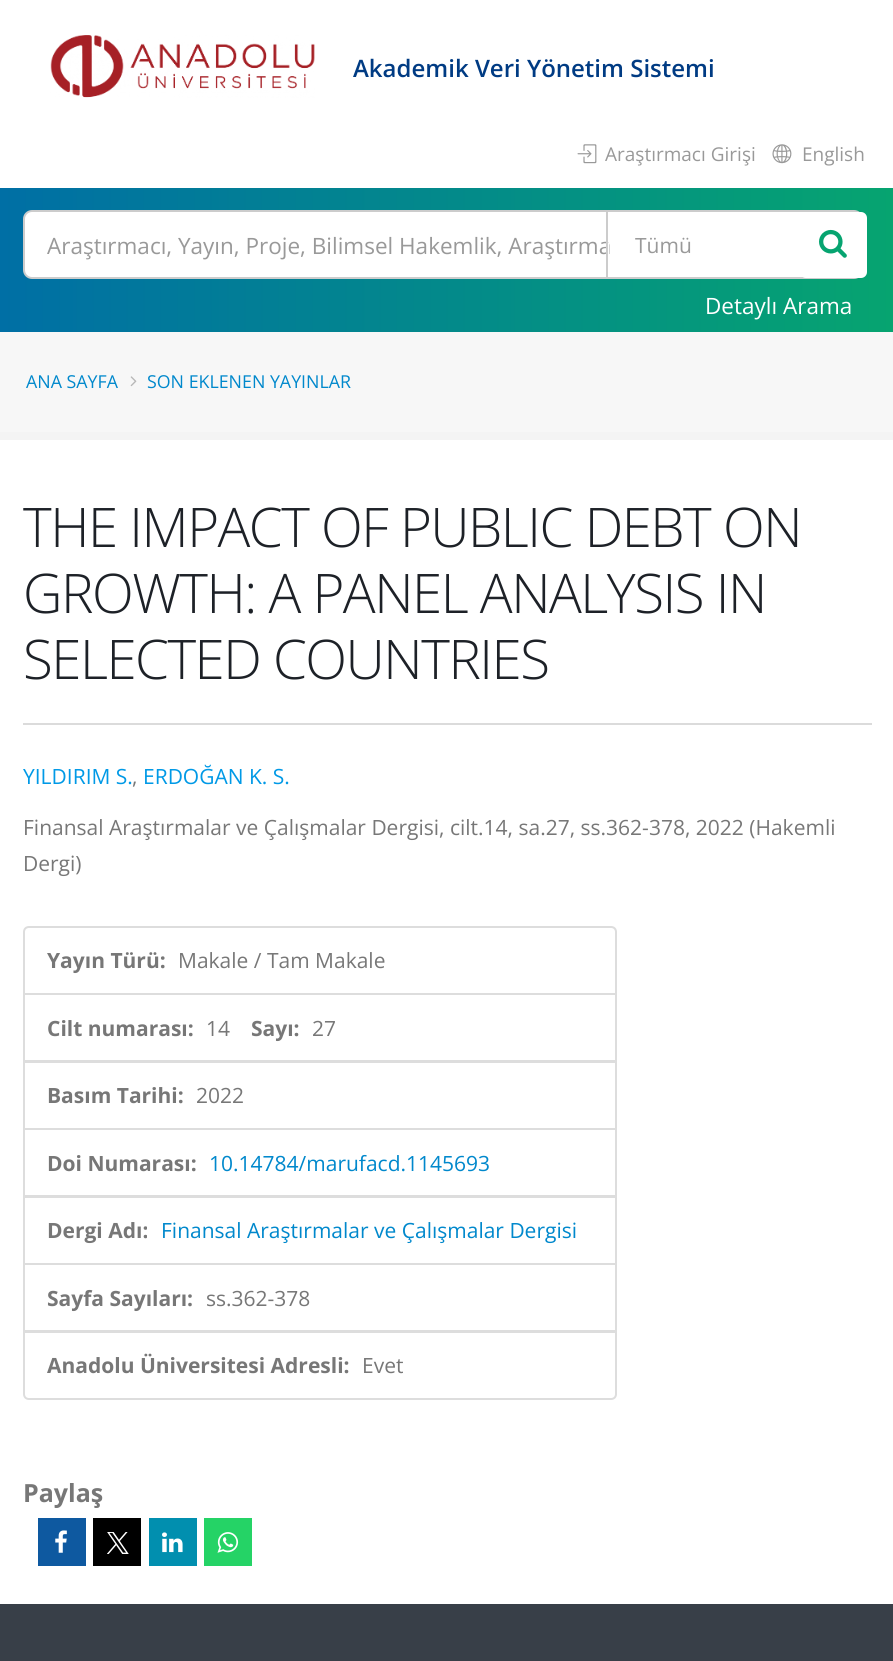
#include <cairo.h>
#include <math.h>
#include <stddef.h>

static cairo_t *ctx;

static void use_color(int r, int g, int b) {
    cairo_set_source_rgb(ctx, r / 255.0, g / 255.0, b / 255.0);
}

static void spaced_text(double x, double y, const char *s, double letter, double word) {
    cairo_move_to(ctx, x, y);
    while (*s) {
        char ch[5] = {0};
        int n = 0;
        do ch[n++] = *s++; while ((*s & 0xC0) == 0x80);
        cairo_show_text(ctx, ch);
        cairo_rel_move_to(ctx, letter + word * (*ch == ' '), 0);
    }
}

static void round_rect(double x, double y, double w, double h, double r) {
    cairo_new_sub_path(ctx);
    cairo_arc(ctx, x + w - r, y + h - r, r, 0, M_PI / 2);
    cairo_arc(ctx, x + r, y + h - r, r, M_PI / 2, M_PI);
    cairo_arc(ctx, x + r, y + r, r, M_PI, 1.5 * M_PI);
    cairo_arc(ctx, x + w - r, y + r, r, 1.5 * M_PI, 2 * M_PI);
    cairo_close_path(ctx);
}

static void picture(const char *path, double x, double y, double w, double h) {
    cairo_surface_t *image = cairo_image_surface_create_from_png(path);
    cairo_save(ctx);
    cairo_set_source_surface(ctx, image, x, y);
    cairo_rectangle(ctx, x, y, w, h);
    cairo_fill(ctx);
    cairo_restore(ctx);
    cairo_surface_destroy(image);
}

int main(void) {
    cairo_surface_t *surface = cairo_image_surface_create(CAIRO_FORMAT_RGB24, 893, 1661);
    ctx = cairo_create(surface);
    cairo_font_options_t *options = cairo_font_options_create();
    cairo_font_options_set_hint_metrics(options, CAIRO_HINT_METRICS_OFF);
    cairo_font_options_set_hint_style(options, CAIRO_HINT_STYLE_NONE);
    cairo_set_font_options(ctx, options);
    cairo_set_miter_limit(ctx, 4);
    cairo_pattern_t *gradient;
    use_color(255, 255, 255);
    cairo_paint(ctx);
    picture("img1.png", 50, 35, 265, 63);
    cairo_select_font_face(ctx, "Open Sans SemiBold", CAIRO_FONT_SLANT_NORMAL, CAIRO_FONT_WEIGHT_NORMAL);
    cairo_set_font_size(ctx, 24);
    use_color(0, 59, 131);
    cairo_move_to(ctx, 353, 77);
    cairo_show_text(ctx, "Akademik Veri Yönetim Sistemi");
    picture("img2.png", 577, 144, 20, 20);
    cairo_select_font_face(ctx, "Open Sans", CAIRO_FONT_SLANT_NORMAL, CAIRO_FONT_WEIGHT_NORMAL);
    cairo_set_font_size(ctx, 19);
    use_color(153, 153, 153);
    cairo_move_to(ctx, 605, 161);
    cairo_show_text(ctx, "Araştırmacı Girişi");
    picture("img3.png", 772, 144, 20, 20);
    cairo_move_to(ctx, 802, 161);
    cairo_show_text(ctx, "English");
    gradient = cairo_pattern_create_linear(0, 260, 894, 259);
    cairo_pattern_add_color_stop_rgba(gradient, 0, 0, 0.435, 0.647, 1);
    cairo_pattern_add_color_stop_rgba(gradient, 1, 0.024, 0.643, 0.439, 1);
    cairo_set_source(ctx, gradient);
    cairo_pattern_destroy(gradient);
    cairo_rectangle(ctx, 0, 188, 893, 144);
    cairo_fill(ctx);
    use_color(255, 255, 255);
    round_rect(24, 211, 838, 67, 8);
    cairo_fill_preserve(ctx);
    use_color(204, 204, 204);
    cairo_stroke(ctx);
    cairo_set_font_size(ctx, 22.5);
    use_color(153, 153, 153);
    cairo_move_to(ctx, 47, 254);
    cairo_show_text(ctx, "Araştırmacı, Yayın, Proje, Bilimsel Hakemlik, Araştırma");
    use_color(255, 255, 255);
    cairo_rectangle(ctx, 608, 243, 1, 11);
    cairo_fill(ctx);
    cairo_rectangle(ctx, 607, 211, 225, 67);
    use_color(204, 204, 204);
    cairo_stroke(ctx);
    cairo_set_font_size(ctx, 21);
    use_color(153, 153, 153);
    cairo_move_to(ctx, 635, 253);
    cairo_show_text(ctx, "Tümü");
    use_color(255, 255, 255);
    round_rect(800, 212, 67, 66, 6);
    cairo_fill(ctx);
    picture("img4.png", 819, 229, 28, 29);
    cairo_set_font_size(ctx, 22.5);
    cairo_move_to(ctx, 705, 314);
    cairo_show_text(ctx, "Detaylı Arama");
    use_color(247, 247, 247);
    cairo_rectangle(ctx, 0, 332, 893, 100);
    cairo_fill(ctx);
    use_color(244, 244, 244);
    cairo_rectangle(ctx, 0, 432, 893, 8);
    cairo_fill(ctx);
    cairo_set_font_size(ctx, 17.8);
    use_color(0, 136, 204);
    cairo_move_to(ctx, 26, 388);
    cairo_show_text(ctx, "ANA SAYFA");
    picture("img5.png", 130, 376, 7, 11);
    cairo_move_to(ctx, 147, 388);
    cairo_show_text(ctx, "SON EKLENEN YAYINLAR");
    cairo_select_font_face(ctx, "Open Sans Light", CAIRO_FONT_SLANT_NORMAL, CAIRO_FONT_WEIGHT_NORMAL);
    cairo_set_font_size(ctx, 54.6);
    use_color(29, 33, 39);
    spaced_text(23, 547, "THE IMPACT OF PUBLIC DEBT ON", -1.5, 0);
    spaced_text(23, 613, "GROWTH: A PANEL ANALYSIS IN", -1.5, 0);
    spaced_text(23, 679, "SELECTED COUNTRIES", -1.5, 0);
    use_color(219, 219, 219);
    cairo_rectangle(ctx, 23, 723, 849, 2);
    cairo_fill(ctx);
    cairo_select_font_face(ctx, "Open Sans", CAIRO_FONT_SLANT_NORMAL, CAIRO_FONT_WEIGHT_NORMAL);
    cairo_set_font_size(ctx, 21);
    use_color(0, 153, 230);
    cairo_move_to(ctx, 23, 784);
    cairo_show_text(ctx, "YILDIRIM S.");
    use_color(119, 119, 119);
    cairo_move_to(ctx, 132, 784);
    cairo_show_text(ctx, ",");
    use_color(0, 153, 230);
    cairo_move_to(ctx, 143, 784);
    cairo_show_text(ctx, "ERDOĞAN K. S.");
    use_color(119, 119, 119);
    cairo_move_to(ctx, 23, 835);
    cairo_show_text(ctx, "Finansal Araştırmalar ve Çalışmalar Dergisi, cilt.14, sa.27, ss.362-378, 2022 (Hakemli");
    cairo_move_to(ctx, 23, 871);
    cairo_show_text(ctx, "Dergi)");
    cairo_new_path(ctx);
    cairo_move_to(ctx, 29, 927);
    cairo_line_to(ctx, 611, 927);
    cairo_curve_to(ctx, 614, 927, 616, 929, 616, 932);
    cairo_line_to(ctx, 616, 994);
    cairo_line_to(ctx, 24, 994);
    cairo_line_to(ctx, 24, 932);
    cairo_curve_to(ctx, 24, 929, 26, 927, 29, 927);
    cairo_close_path(ctx);
    use_color(221, 221, 221);
    cairo_stroke(ctx);
    cairo_select_font_face(ctx, "Open Sans", CAIRO_FONT_SLANT_NORMAL, CAIRO_FONT_WEIGHT_BOLD);
    use_color(119, 119, 119);
    cairo_move_to(ctx, 47, 968);
    cairo_show_text(ctx, "Yayın Türü:");
    cairo_select_font_face(ctx, "Open Sans", CAIRO_FONT_SLANT_NORMAL, CAIRO_FONT_WEIGHT_NORMAL);
    cairo_move_to(ctx, 178, 968);
    cairo_show_text(ctx, "Makale / Tam Makale");
    cairo_rectangle(ctx, 24, 994, 592, 67);
    use_color(221, 221, 221);
    cairo_stroke(ctx);
    cairo_select_font_face(ctx, "Open Sans", CAIRO_FONT_SLANT_NORMAL, CAIRO_FONT_WEIGHT_BOLD);
    use_color(119, 119, 119);
    cairo_move_to(ctx, 47, 1036);
    cairo_show_text(ctx, "Cilt numarası:");
    cairo_select_font_face(ctx, "Open Sans", CAIRO_FONT_SLANT_NORMAL, CAIRO_FONT_WEIGHT_NORMAL);
    cairo_move_to(ctx, 206, 1036);
    cairo_show_text(ctx, "14");
    cairo_select_font_face(ctx, "Open Sans", CAIRO_FONT_SLANT_NORMAL, CAIRO_FONT_WEIGHT_BOLD);
    cairo_move_to(ctx, 251, 1036);
    cairo_show_text(ctx, "Sayı:");
    cairo_select_font_face(ctx, "Open Sans", CAIRO_FONT_SLANT_NORMAL, CAIRO_FONT_WEIGHT_NORMAL);
    cairo_move_to(ctx, 312, 1036);
    cairo_show_text(ctx, "27");
    cairo_rectangle(ctx, 24, 1062, 592, 67);
    use_color(221, 221, 221);
    cairo_stroke(ctx);
    cairo_select_font_face(ctx, "Open Sans", CAIRO_FONT_SLANT_NORMAL, CAIRO_FONT_WEIGHT_BOLD);
    use_color(119, 119, 119);
    cairo_move_to(ctx, 47, 1103);
    cairo_show_text(ctx, "Basım Tarihi:");
    cairo_select_font_face(ctx, "Open Sans", CAIRO_FONT_SLANT_NORMAL, CAIRO_FONT_WEIGHT_NORMAL);
    cairo_move_to(ctx, 196, 1103);
    cairo_show_text(ctx, "2022");
    cairo_rectangle(ctx, 24, 1129, 592, 67);
    use_color(221, 221, 221);
    cairo_stroke(ctx);
    cairo_select_font_face(ctx, "Open Sans", CAIRO_FONT_SLANT_NORMAL, CAIRO_FONT_WEIGHT_BOLD);
    use_color(119, 119, 119);
    cairo_move_to(ctx, 47, 1171);
    cairo_show_text(ctx, "Doi Numarası:");
    cairo_select_font_face(ctx, "Open Sans", CAIRO_FONT_SLANT_NORMAL, CAIRO_FONT_WEIGHT_NORMAL);
    use_color(0, 136, 204);
    cairo_move_to(ctx, 209, 1171);
    cairo_show_text(ctx, "10.14784/marufacd.1145693");
    cairo_rectangle(ctx, 24, 1197, 592, 67);
    use_color(221, 221, 221);
    cairo_stroke(ctx);
    cairo_select_font_face(ctx, "Open Sans", CAIRO_FONT_SLANT_NORMAL, CAIRO_FONT_WEIGHT_BOLD);
    use_color(119, 119, 119);
    cairo_move_to(ctx, 47, 1238);
    cairo_show_text(ctx, "Dergi Adı:");
    cairo_select_font_face(ctx, "Open Sans", CAIRO_FONT_SLANT_NORMAL, CAIRO_FONT_WEIGHT_NORMAL);
    use_color(0, 136, 204);
    cairo_move_to(ctx, 161, 1238);
    cairo_show_text(ctx, "Finansal Araştırmalar ve Çalışmalar Dergisi");
    cairo_rectangle(ctx, 24, 1264, 592, 67);
    use_color(221, 221, 221);
    cairo_stroke(ctx);
    cairo_select_font_face(ctx, "Open Sans", CAIRO_FONT_SLANT_NORMAL, CAIRO_FONT_WEIGHT_BOLD);
    use_color(119, 119, 119);
    cairo_move_to(ctx, 47, 1306);
    cairo_show_text(ctx, "Sayfa Sayıları:");
    cairo_select_font_face(ctx, "Open Sans", CAIRO_FONT_SLANT_NORMAL, CAIRO_FONT_WEIGHT_NORMAL);
    cairo_move_to(ctx, 206, 1306);
    cairo_show_text(ctx, "ss.362-378");
    use_color(255, 255, 255);
    cairo_new_path(ctx);
    cairo_move_to(ctx, 24, 1332);
    cairo_line_to(ctx, 616, 1332);
    cairo_line_to(ctx, 616, 1394);
    cairo_curve_to(ctx, 616, 1397, 614, 1399, 611, 1399);
    cairo_line_to(ctx, 29, 1399);
    cairo_curve_to(ctx, 26, 1399, 24, 1397, 24, 1394);
    cairo_close_path(ctx);
    cairo_fill_preserve(ctx);
    use_color(221, 221, 221);
    cairo_stroke(ctx);
    cairo_select_font_face(ctx, "Open Sans", CAIRO_FONT_SLANT_NORMAL, CAIRO_FONT_WEIGHT_BOLD);
    use_color(119, 119, 119);
    cairo_move_to(ctx, 47, 1373);
    cairo_show_text(ctx, "Anadolu Üniversitesi Adresli:");
    cairo_select_font_face(ctx, "Open Sans", CAIRO_FONT_SLANT_NORMAL, CAIRO_FONT_WEIGHT_NORMAL);
    cairo_move_to(ctx, 362, 1373);
    cairo_show_text(ctx, "Evet");
    cairo_select_font_face(ctx, "Open Sans", CAIRO_FONT_SLANT_NORMAL, CAIRO_FONT_WEIGHT_BOLD);
    cairo_set_font_size(ctx, 25);
    cairo_move_to(ctx, 23, 1502);
    cairo_show_text(ctx, "Paylaş");
    use_color(14, 89, 160);
    cairo_rectangle(ctx, 38, 1518, 48, 48);
    cairo_fill(ctx);
    picture("img6.png", 55, 1530, 12, 23);
    use_color(0, 0, 0);
    cairo_rectangle(ctx, 93, 1518, 48, 48);
    cairo_fill(ctx);
    picture("img7.png", 107, 1532, 22, 22);
    use_color(1, 143, 175);
    cairo_rectangle(ctx, 149, 1518, 48, 48);
    cairo_fill(ctx);
    picture("img8.png", 162, 1532, 21, 21);
    use_color(37, 211, 102);
    cairo_rectangle(ctx, 204, 1518, 48, 48);
    cairo_fill(ctx);
    picture("img9.png", 217, 1532, 22, 21);
    use_color(56, 63, 72);
    cairo_rectangle(ctx, 0, 1604, 893, 57);
    cairo_fill(ctx);
    cairo_surface_write_to_png(surface, "result.png");
    cairo_font_options_destroy(options);
    cairo_destroy(ctx);
    cairo_surface_destroy(surface);
    return 0;
}
